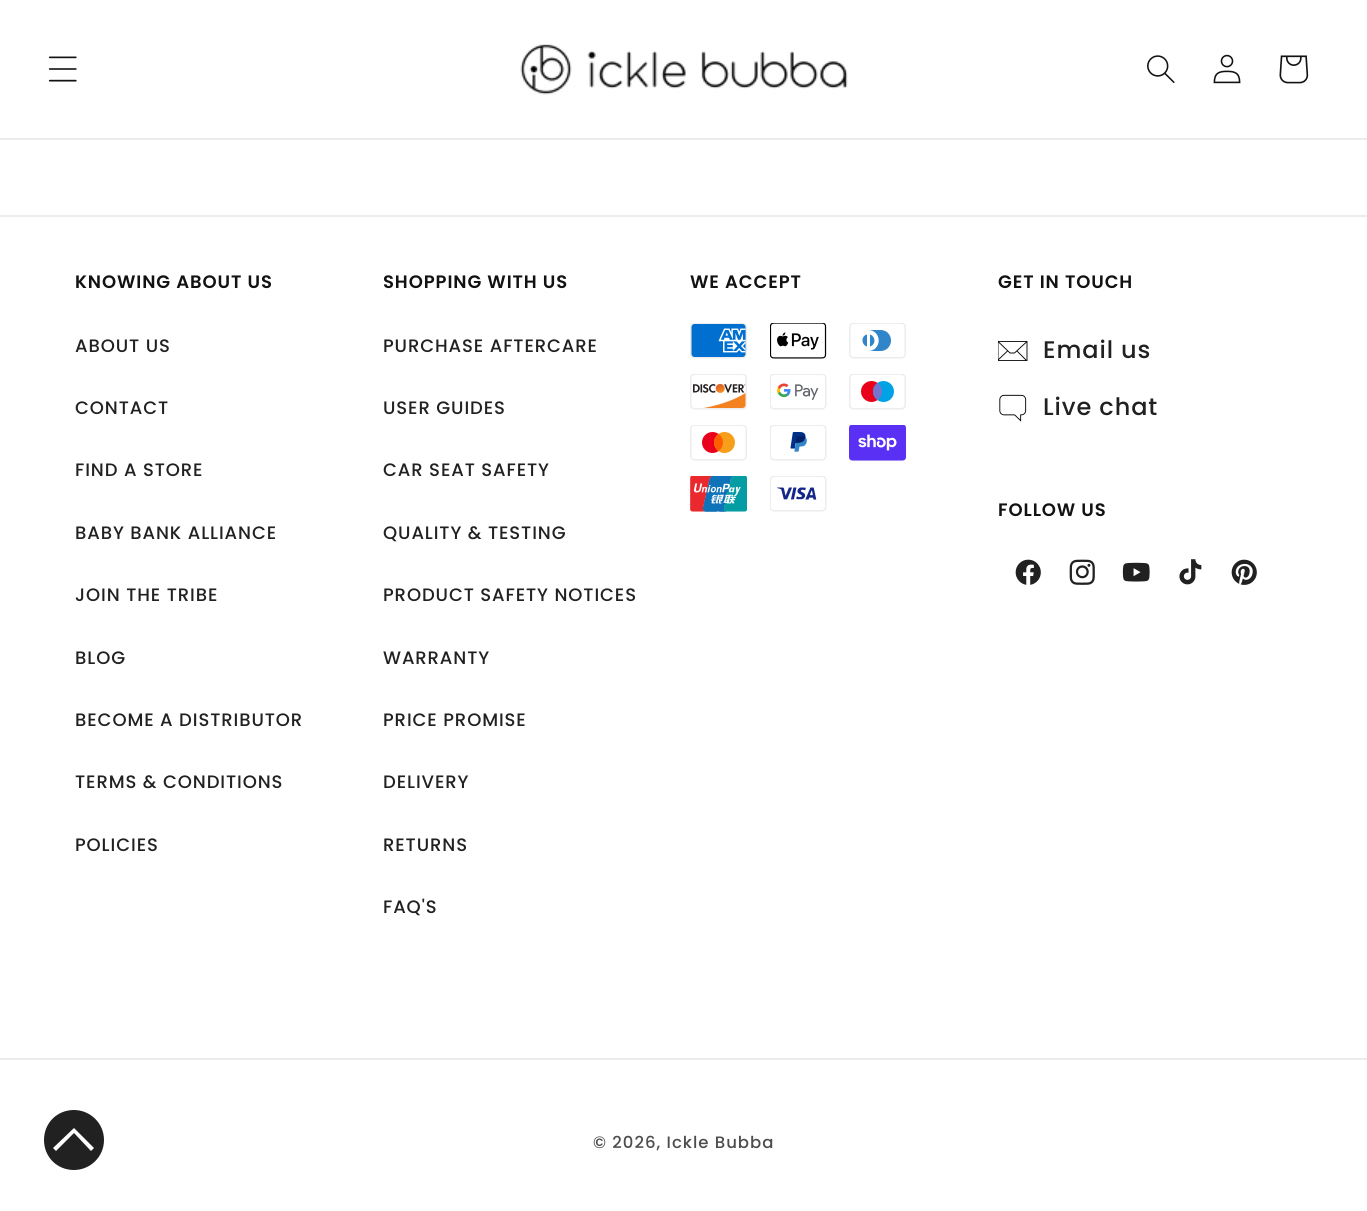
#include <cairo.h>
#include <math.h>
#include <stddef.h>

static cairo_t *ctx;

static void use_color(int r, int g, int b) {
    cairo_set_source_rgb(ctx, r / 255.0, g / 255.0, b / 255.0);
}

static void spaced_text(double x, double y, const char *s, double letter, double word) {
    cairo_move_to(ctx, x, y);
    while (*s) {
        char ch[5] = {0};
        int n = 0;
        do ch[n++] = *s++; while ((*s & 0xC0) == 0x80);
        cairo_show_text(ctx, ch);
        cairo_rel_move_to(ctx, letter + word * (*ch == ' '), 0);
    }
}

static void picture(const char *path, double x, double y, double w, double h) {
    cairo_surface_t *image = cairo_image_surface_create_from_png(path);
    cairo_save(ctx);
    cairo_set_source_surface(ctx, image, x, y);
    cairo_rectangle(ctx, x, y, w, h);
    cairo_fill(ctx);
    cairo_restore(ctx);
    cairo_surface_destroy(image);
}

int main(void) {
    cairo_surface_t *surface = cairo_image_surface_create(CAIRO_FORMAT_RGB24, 1367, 1211);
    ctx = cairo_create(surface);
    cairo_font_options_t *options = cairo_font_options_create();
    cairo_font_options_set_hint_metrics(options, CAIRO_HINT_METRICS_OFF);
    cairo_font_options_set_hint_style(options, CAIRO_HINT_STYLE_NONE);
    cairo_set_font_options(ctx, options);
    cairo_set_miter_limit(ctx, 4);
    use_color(255, 255, 255);
    cairo_paint(ctx);
    use_color(236, 236, 236);
    cairo_rectangle(ctx, 0, 138, 1367, 2);
    cairo_fill(ctx);
    picture("img1.png", 48, 56, 29, 26);
    picture("img2.png", 520, 44, 328, 51);
    picture("img3.png", 1147, 55, 28, 28);
    picture("img4.png", 1213, 54, 28, 30);
    picture("img5.png", 1279, 55, 30, 29);
    use_color(33, 33, 33);
    cairo_set_fill_rule(ctx, CAIRO_FILL_RULE_EVEN_ODD);
    cairo_new_path(ctx);
    cairo_move_to(ctx, 74, 1110);
    cairo_curve_to(ctx, 57, 1110, 44, 1123, 44, 1140);
    cairo_curve_to(ctx, 44, 1157, 57, 1170, 74, 1170);
    cairo_curve_to(ctx, 90, 1170, 104, 1157, 104, 1140);
    cairo_curve_to(ctx, 104, 1123, 90, 1110, 74, 1110);
    cairo_close_path(ctx);
    cairo_move_to(ctx, 91, 1151);
    cairo_line_to(ctx, 74, 1133);
    cairo_line_to(ctx, 56, 1151);
    cairo_line_to(ctx, 53, 1148);
    cairo_line_to(ctx, 74, 1128);
    cairo_line_to(ctx, 94, 1148);
    cairo_close_path(ctx);
    cairo_fill(ctx);
    use_color(236, 236, 236);
    cairo_rectangle(ctx, 0, 215, 1367, 2);
    cairo_fill(ctx);
    cairo_select_font_face(ctx, "Poppins SemiBold", CAIRO_FONT_SLANT_NORMAL, CAIRO_FONT_WEIGHT_NORMAL);
    cairo_set_font_size(ctx, 18);
    use_color(18, 18, 18);
    spaced_text(75, 288, "KNOWING ABOUT US", 0.9, 0);
    cairo_select_font_face(ctx, "Poppins Medium", CAIRO_FONT_SLANT_NORMAL, CAIRO_FONT_WEIGHT_NORMAL);
    use_color(33, 33, 33);
    spaced_text(75, 352, "ABOUT US", 0.9, 0);
    spaced_text(75, 414, "CONTACT", 0.9, 0);
    spaced_text(75, 476, "FIND A STORE", 0.9, 0);
    spaced_text(75, 539, "BABY BANK ALLIANCE", 0.9, 0);
    spaced_text(75, 601, "JOIN THE TRIBE", 0.9, 0);
    spaced_text(75, 664, "BLOG", 0.9, 0);
    spaced_text(75, 726, "BECOME A DISTRIBUTOR", 0.9, 0);
    spaced_text(75, 788, "TERMS & CONDITIONS", 0.9, 0);
    spaced_text(75, 851, "POLICIES", 0.9, 0);
    cairo_select_font_face(ctx, "Poppins SemiBold", CAIRO_FONT_SLANT_NORMAL, CAIRO_FONT_WEIGHT_NORMAL);
    use_color(18, 18, 18);
    spaced_text(383, 288, "SHOPPING WITH US", 0.9, 0);
    cairo_select_font_face(ctx, "Poppins Medium", CAIRO_FONT_SLANT_NORMAL, CAIRO_FONT_WEIGHT_NORMAL);
    use_color(33, 33, 33);
    spaced_text(383, 352, "PURCHASE AFTERCARE", 0.9, 0);
    spaced_text(383, 414, "USER GUIDES", 0.9, 0);
    spaced_text(383, 476, "CAR SEAT SAFETY", 0.9, 0);
    spaced_text(383, 539, "QUALITY & TESTING", 0.9, 0);
    spaced_text(383, 601, "PRODUCT SAFETY NOTICES", 0.9, 0);
    spaced_text(383, 664, "WARRANTY", 0.9, 0);
    spaced_text(383, 726, "PRICE PROMISE", 0.9, 0);
    spaced_text(383, 788, "DELIVERY", 0.9, 0);
    spaced_text(383, 851, "RETURNS", 0.9, 0);
    spaced_text(383, 913, "FAQ'S", 0.9, 0);
    cairo_select_font_face(ctx, "Poppins SemiBold", CAIRO_FONT_SLANT_NORMAL, CAIRO_FONT_WEIGHT_NORMAL);
    use_color(18, 18, 18);
    spaced_text(690, 288, "WE ACCEPT", 0.9, 0);
    picture("img6.png", 690, 323, 57, 36);
    picture("img7.png", 770, 323, 57, 36);
    picture("img8.png", 849, 323, 57, 36);
    picture("img9.png", 690, 374, 57, 36);
    picture("img10.png", 770, 374, 57, 36);
    picture("img11.png", 849, 374, 57, 36);
    picture("img12.png", 690, 425, 57, 36);
    picture("img13.png", 770, 425, 57, 36);
    picture("img14.png", 849, 425, 57, 36);
    picture("img15.png", 690, 476, 57, 36);
    picture("img16.png", 770, 476, 57, 36);
    spaced_text(998, 288, "GET IN TOUCH", 0.9, 0);
    cairo_save(ctx);
    cairo_set_fill_rule(ctx, CAIRO_FILL_RULE_WINDING);
    cairo_rectangle(ctx, 998, 336, 30, 30);
    cairo_clip(ctx);
    cairo_new_path(ctx);
    cairo_move_to(ctx, 1027, 360.5);
    cairo_line_to(ctx, 998, 360.5);
    cairo_line_to(ctx, 998, 341.5);
    cairo_line_to(ctx, 1027, 341.5);
    cairo_close_path(ctx);
    cairo_move_to(ctx, 998, 341.5);
    cairo_line_to(ctx, 1010, 353);
    cairo_line_to(ctx, 1014.5, 353);
    cairo_line_to(ctx, 1027, 341.5);
    cairo_move_to(ctx, 1007.5, 351);
    cairo_line_to(ctx, 998, 360);
    cairo_move_to(ctx, 1026.5, 360.5);
    cairo_line_to(ctx, 1017, 351);
    use_color(0, 0, 0);
    cairo_set_line_width(ctx, 0.9);
    cairo_stroke(ctx);
    cairo_restore(ctx);
    cairo_select_font_face(ctx, "Poppins Medium", CAIRO_FONT_SLANT_NORMAL, CAIRO_FONT_WEIGHT_NORMAL);
    cairo_set_font_size(ctx, 24);
    use_color(33, 33, 33);
    spaced_text(1043, 358, "Email us", 0.9, 0);
    picture("img17.png", 999, 394, 28, 28);
    spaced_text(1043, 415, "Live chat", 0.9, 0);
    cairo_select_font_face(ctx, "Poppins SemiBold", CAIRO_FONT_SLANT_NORMAL, CAIRO_FONT_WEIGHT_NORMAL);
    cairo_set_font_size(ctx, 18);
    use_color(18, 18, 18);
    spaced_text(998, 516, "FOLLOW US", 0.9, 0);
    picture("img18.png", 1015, 559, 26, 26);
    picture("img19.png", 1069, 559, 26, 26);
    picture("img20.png", 1122, 562, 28, 20);
    picture("img21.png", 1179, 559, 23, 26);
    picture("img22.png", 1231, 559, 26, 26);
    use_color(236, 236, 236);
    cairo_rectangle(ctx, 0, 1058, 1367, 2);
    cairo_fill(ctx);
    cairo_select_font_face(ctx, "Poppins Medium", CAIRO_FONT_SLANT_NORMAL, CAIRO_FONT_WEIGHT_NORMAL);
    cairo_set_font_size(ctx, 16.5);
    use_color(77, 77, 77);
    spaced_text(593, 1148, "© 2026, Ickle Bubba", 1, 0);
    cairo_surface_write_to_png(surface, "result.png");
    cairo_font_options_destroy(options);
    cairo_destroy(ctx);
    cairo_surface_destroy(surface);
    return 0;
}
